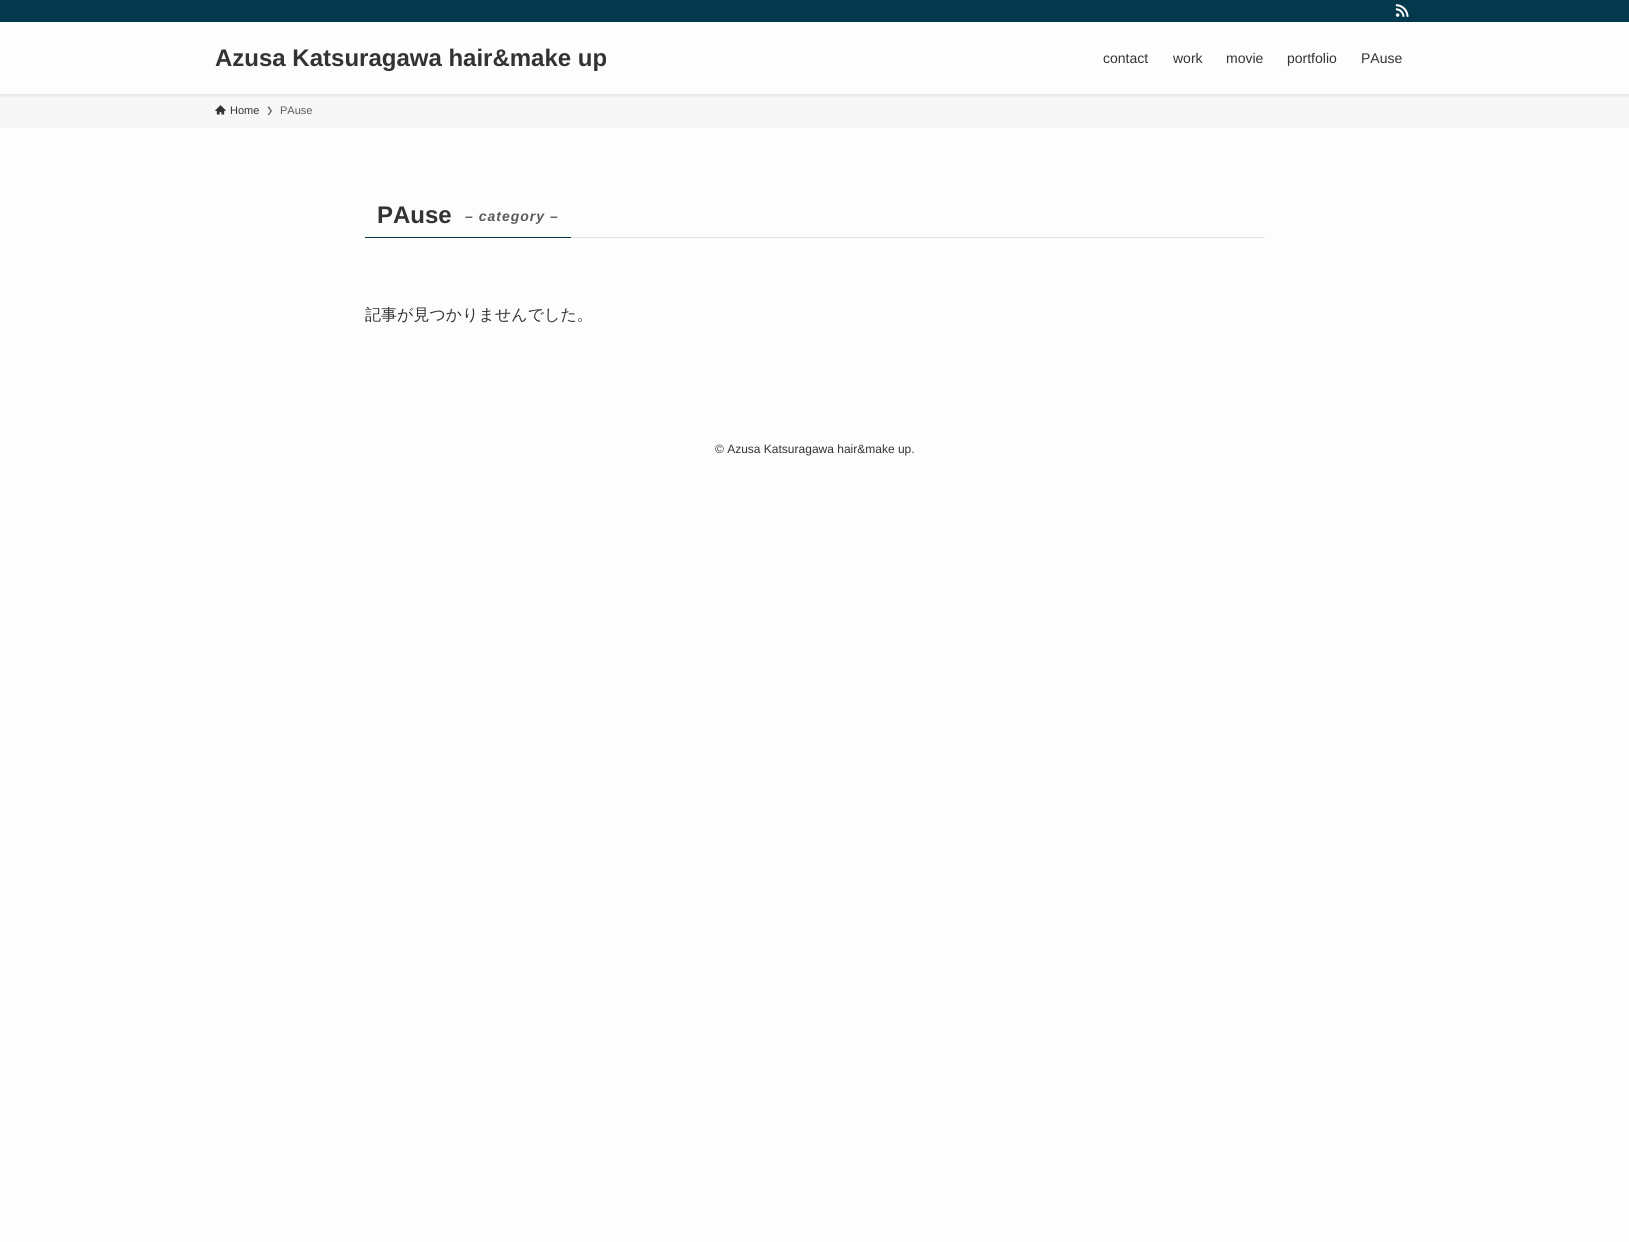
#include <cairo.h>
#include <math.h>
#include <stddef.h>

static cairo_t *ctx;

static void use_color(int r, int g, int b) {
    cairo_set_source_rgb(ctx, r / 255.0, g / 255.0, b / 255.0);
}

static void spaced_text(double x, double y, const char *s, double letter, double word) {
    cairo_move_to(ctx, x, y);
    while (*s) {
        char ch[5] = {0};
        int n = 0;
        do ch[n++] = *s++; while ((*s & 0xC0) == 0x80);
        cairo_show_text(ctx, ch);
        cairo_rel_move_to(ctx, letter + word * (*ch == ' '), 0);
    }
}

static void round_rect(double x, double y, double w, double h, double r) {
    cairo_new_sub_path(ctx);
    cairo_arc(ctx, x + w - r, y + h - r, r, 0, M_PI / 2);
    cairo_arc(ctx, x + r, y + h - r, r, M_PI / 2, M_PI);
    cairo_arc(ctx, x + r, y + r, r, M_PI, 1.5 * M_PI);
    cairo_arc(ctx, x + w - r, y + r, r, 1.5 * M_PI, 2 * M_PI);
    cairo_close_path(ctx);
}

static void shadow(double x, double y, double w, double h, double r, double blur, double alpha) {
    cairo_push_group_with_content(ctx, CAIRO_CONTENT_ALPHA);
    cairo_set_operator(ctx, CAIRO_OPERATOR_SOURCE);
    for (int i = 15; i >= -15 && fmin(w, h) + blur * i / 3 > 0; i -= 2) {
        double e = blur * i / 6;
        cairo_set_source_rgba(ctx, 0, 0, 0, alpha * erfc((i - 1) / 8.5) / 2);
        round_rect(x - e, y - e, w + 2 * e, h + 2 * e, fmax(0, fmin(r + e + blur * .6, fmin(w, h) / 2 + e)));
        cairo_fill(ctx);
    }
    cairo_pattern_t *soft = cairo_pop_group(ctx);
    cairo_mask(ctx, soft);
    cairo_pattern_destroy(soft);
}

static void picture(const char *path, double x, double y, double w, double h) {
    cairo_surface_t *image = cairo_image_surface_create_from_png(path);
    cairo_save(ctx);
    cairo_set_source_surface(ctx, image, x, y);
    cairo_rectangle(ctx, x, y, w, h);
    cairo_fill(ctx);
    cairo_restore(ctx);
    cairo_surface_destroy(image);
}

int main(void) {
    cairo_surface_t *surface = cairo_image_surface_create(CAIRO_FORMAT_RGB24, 1629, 1242);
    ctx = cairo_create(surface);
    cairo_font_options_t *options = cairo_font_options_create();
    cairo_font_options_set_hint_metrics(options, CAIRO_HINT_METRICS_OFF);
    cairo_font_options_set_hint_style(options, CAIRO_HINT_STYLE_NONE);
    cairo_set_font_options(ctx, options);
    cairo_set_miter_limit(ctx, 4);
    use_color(253, 253, 253);
    cairo_paint(ctx);
    use_color(247, 247, 247);
    cairo_rectangle(ctx, 0, 94, 1629, 34);
    cairo_fill(ctx);
    cairo_save(ctx);
    cairo_rectangle(ctx, 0, 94, 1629, 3);
    cairo_clip(ctx);
    use_color(0, 0, 0);
    shadow(0, 1, 1629, 94, 0, 2, 0.12);
    cairo_restore(ctx);
    use_color(4, 56, 76);
    cairo_rectangle(ctx, 0, 0, 1629, 22);
    cairo_fill(ctx);
    picture("img1.png", 1395, 4, 14, 13);
    cairo_select_font_face(ctx, "Liberation Sans", CAIRO_FONT_SLANT_NORMAL, CAIRO_FONT_WEIGHT_BOLD);
    cairo_set_font_size(ctx, 24);
    use_color(51, 51, 51);
    cairo_move_to(ctx, 215, 66);
    cairo_show_text(ctx, "Azusa Katsuragawa hair&make up");
    cairo_select_font_face(ctx, "Liberation Sans", CAIRO_FONT_SLANT_NORMAL, CAIRO_FONT_WEIGHT_NORMAL);
    cairo_set_font_size(ctx, 14);
    cairo_move_to(ctx, 1103, 63);
    cairo_show_text(ctx, "contact");
    cairo_move_to(ctx, 1173, 63);
    cairo_show_text(ctx, "work");
    cairo_move_to(ctx, 1226, 63);
    cairo_show_text(ctx, "movie");
    cairo_move_to(ctx, 1287, 63);
    cairo_show_text(ctx, "portfolio");
    cairo_move_to(ctx, 1361, 63);
    cairo_show_text(ctx, "PAuse");
    picture("img2.png", 215, 105, 11, 10);
    cairo_set_font_size(ctx, 11);
    cairo_move_to(ctx, 230, 114);
    cairo_show_text(ctx, "Home");
    use_color(90, 90, 90);
    cairo_new_path(ctx);
    cairo_move_to(ctx, 269, 106.5);
    cairo_line_to(ctx, 267.5, 107);
    cairo_line_to(ctx, 270.5, 111);
    cairo_line_to(ctx, 267.5, 115);
    cairo_line_to(ctx, 269, 115);
    cairo_line_to(ctx, 272, 111);
    cairo_close_path(ctx);
    cairo_fill(ctx);
    cairo_move_to(ctx, 280, 114);
    cairo_show_text(ctx, "PAuse");
    use_color(226, 226, 226);
    cairo_rectangle(ctx, 571, 237, 694, 1);
    cairo_fill(ctx);
    use_color(4, 56, 76);
    cairo_rectangle(ctx, 365, 237, 206, 1);
    cairo_fill(ctx);
    cairo_select_font_face(ctx, "Liberation Sans", CAIRO_FONT_SLANT_NORMAL, CAIRO_FONT_WEIGHT_BOLD);
    cairo_set_font_size(ctx, 24);
    use_color(51, 51, 51);
    cairo_move_to(ctx, 377, 223);
    cairo_show_text(ctx, "PAuse");
    cairo_select_font_face(ctx, "Liberation Sans", CAIRO_FONT_SLANT_ITALIC, CAIRO_FONT_WEIGHT_BOLD);
    cairo_set_font_size(ctx, 14);
    use_color(90, 90, 90);
    spaced_text(465, 221, "– category –", 1, 0);
    cairo_select_font_face(ctx, "WenQuanYi Zen Hei Medium", CAIRO_FONT_SLANT_NORMAL, CAIRO_FONT_WEIGHT_NORMAL);
    cairo_set_font_size(ctx, 16);
    use_color(51, 51, 51);
    cairo_move_to(ctx, 365, 320);
    cairo_show_text(ctx, "記事が見つかりませんでした。");
    cairo_select_font_face(ctx, "Liberation Sans", CAIRO_FONT_SLANT_NORMAL, CAIRO_FONT_WEIGHT_NORMAL);
    cairo_set_font_size(ctx, 12);
    cairo_move_to(ctx, 715, 453);
    cairo_show_text(ctx, "© Azusa Katsuragawa hair&make up.");
    cairo_surface_write_to_png(surface, "result.png");
    cairo_font_options_destroy(options);
    cairo_destroy(ctx);
    cairo_surface_destroy(surface);
    return 0;
}
